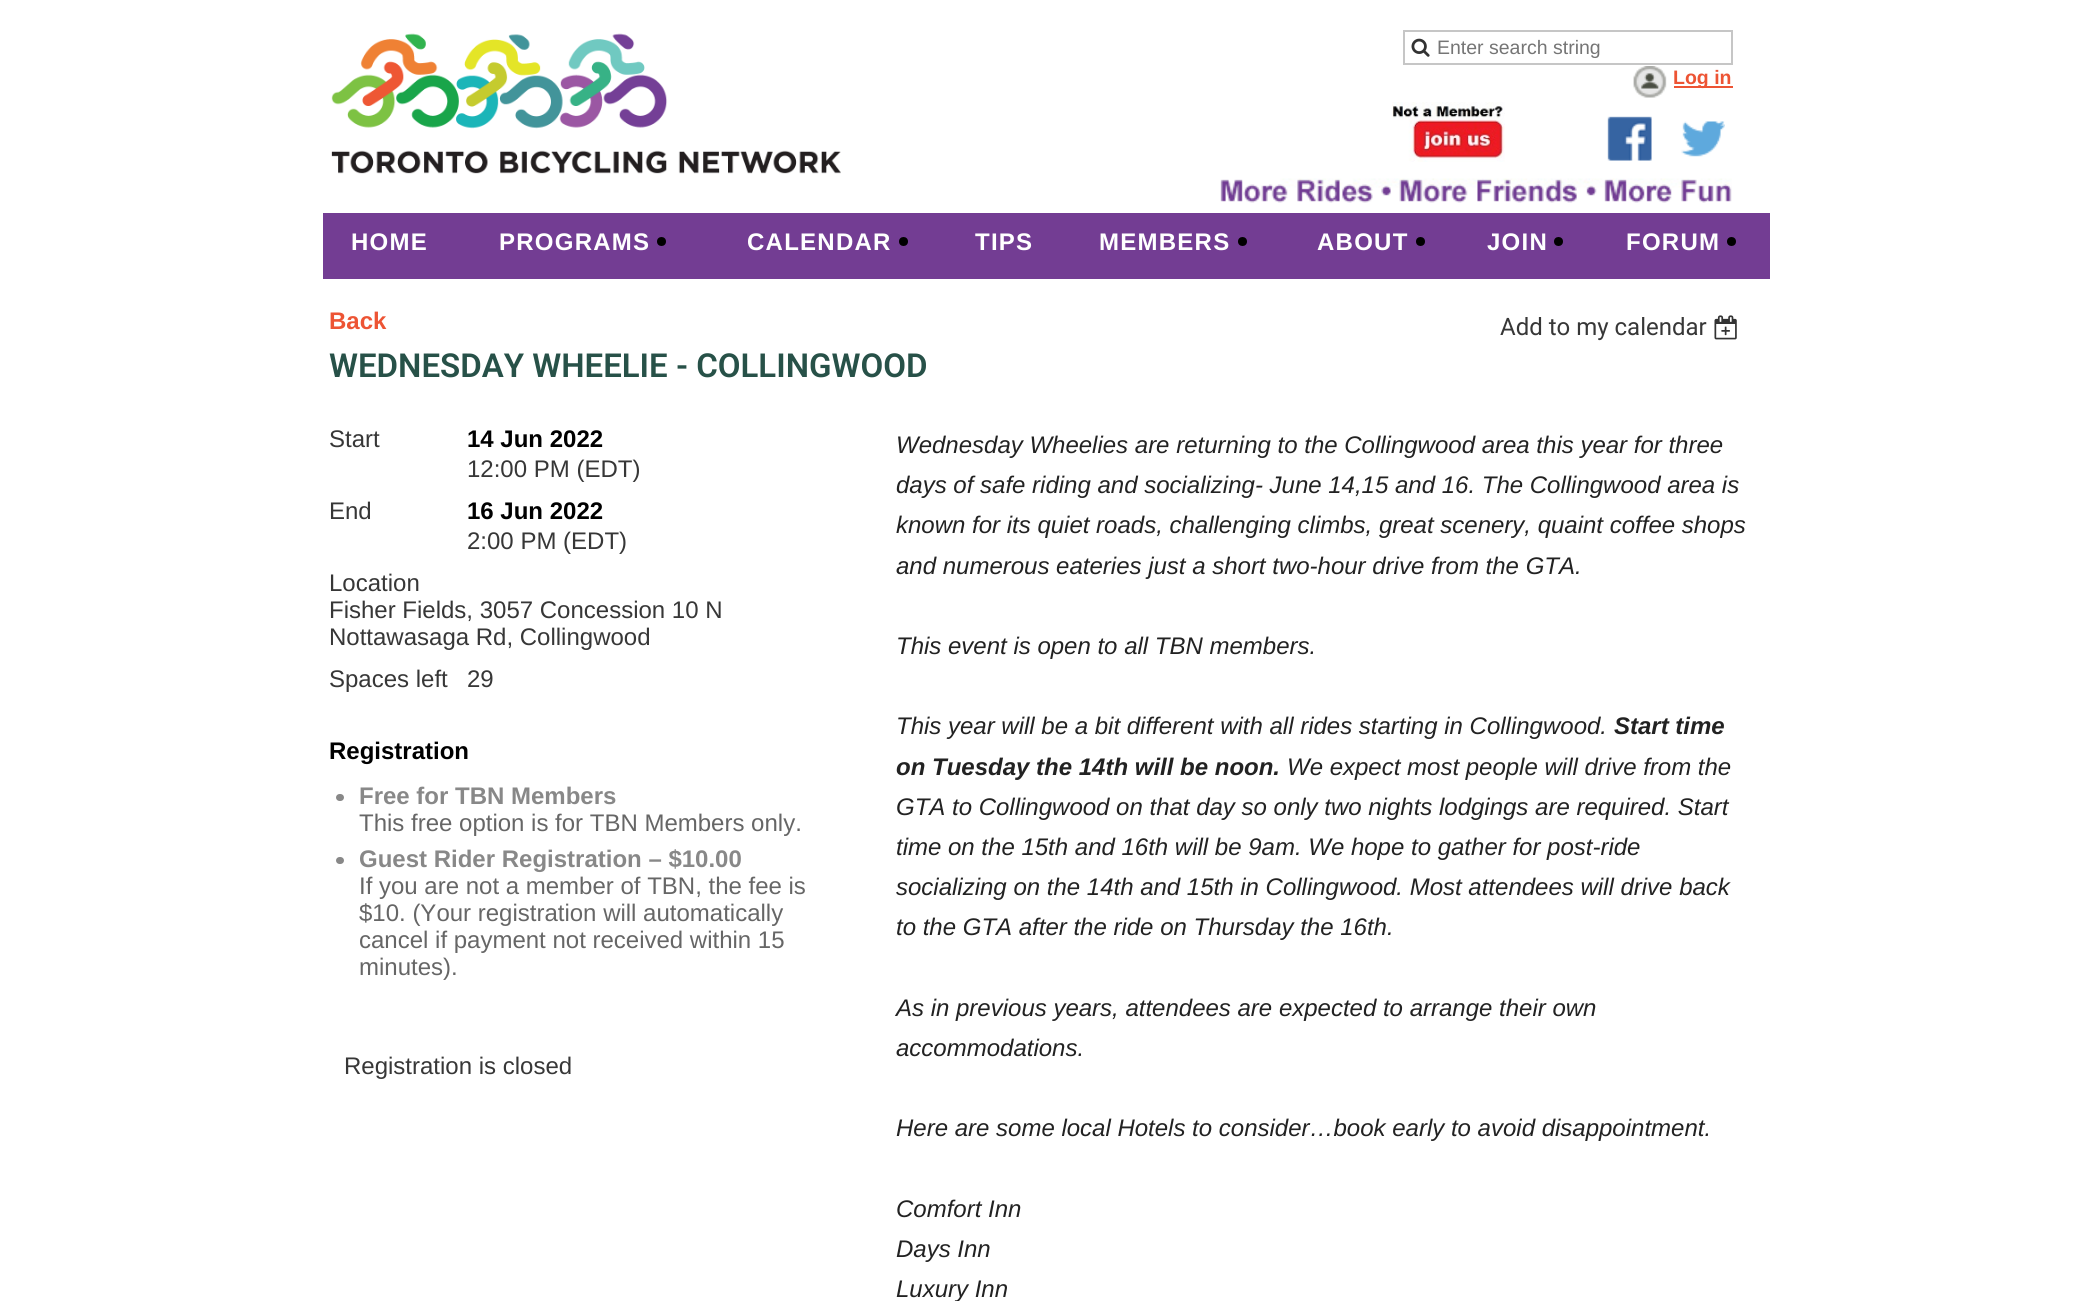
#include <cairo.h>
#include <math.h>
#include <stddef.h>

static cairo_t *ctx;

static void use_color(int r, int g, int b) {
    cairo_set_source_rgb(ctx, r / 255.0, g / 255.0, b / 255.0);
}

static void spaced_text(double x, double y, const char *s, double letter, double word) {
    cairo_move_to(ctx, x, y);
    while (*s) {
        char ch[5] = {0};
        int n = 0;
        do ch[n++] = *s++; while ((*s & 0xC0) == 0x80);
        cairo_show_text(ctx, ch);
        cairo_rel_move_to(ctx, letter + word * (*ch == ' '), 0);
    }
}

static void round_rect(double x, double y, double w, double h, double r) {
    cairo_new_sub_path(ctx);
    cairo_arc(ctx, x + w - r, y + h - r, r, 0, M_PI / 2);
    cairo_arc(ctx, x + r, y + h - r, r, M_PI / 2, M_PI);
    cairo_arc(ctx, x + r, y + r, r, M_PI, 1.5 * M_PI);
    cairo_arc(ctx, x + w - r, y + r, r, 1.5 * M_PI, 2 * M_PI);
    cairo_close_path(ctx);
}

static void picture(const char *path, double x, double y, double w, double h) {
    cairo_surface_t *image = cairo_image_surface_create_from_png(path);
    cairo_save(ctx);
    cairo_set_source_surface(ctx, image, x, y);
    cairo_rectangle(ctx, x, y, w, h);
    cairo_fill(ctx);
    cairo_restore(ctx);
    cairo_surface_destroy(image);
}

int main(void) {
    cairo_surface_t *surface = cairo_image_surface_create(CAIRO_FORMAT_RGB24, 2083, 1301);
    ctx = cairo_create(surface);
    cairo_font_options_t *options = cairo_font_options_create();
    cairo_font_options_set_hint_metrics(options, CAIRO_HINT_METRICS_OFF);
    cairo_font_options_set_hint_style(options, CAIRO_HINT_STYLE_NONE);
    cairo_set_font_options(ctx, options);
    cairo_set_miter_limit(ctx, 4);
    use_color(255, 255, 255);
    cairo_paint(ctx);
    picture("img1.png", 331, 33, 510, 141);
    cairo_rectangle(ctx, 1404, 31, 328, 33);
    use_color(198, 198, 198);
    cairo_stroke(ctx);
    picture("img2.png", 1411, 38, 19, 19);
    cairo_select_font_face(ctx, "Liberation Sans", CAIRO_FONT_SLANT_NORMAL, CAIRO_FONT_WEIGHT_NORMAL);
    cairo_set_font_size(ctx, 19.5);
    use_color(117, 117, 117);
    cairo_move_to(ctx, 1437, 54);
    cairo_show_text(ctx, "Enter search string");
    picture("img3.png", 1633, 66, 34, 32);
    use_color(237, 84, 52);
    cairo_rectangle(ctx, 1674, 86, 59, 2);
    cairo_fill(ctx);
    cairo_select_font_face(ctx, "Liberation Sans", CAIRO_FONT_SLANT_NORMAL, CAIRO_FONT_WEIGHT_BOLD);
    cairo_move_to(ctx, 1673, 84);
    cairo_show_text(ctx, "Log in");
    picture("img4.png", 1392, 102, 113, 60);
    picture("img5.png", 1607, 116, 45, 45);
    picture("img6.png", 1681, 121, 44, 36);
    picture("img7.png", 1220, 178, 512, 25);
    use_color(115, 61, 147);
    cairo_rectangle(ctx, 323, 213, 1447, 66);
    cairo_fill(ctx);
    cairo_set_font_size(ctx, 24);
    use_color(255, 255, 255);
    spaced_text(351, 250, "HOME", 1.25, 0);
    spaced_text(499, 250, "PROGRAMS", 1.25, 0);
    use_color(0, 0, 0);
    cairo_new_path(ctx);
    cairo_arc(ctx, 661.5, 241.5, 4.5, 0, 2 * M_PI);
    cairo_fill(ctx);
    use_color(255, 255, 255);
    spaced_text(747, 250, "CALENDAR", 1.25, 0);
    use_color(0, 0, 0);
    cairo_new_path(ctx);
    cairo_arc(ctx, 903.5, 241.5, 4.5, 0, 2 * M_PI);
    cairo_fill(ctx);
    use_color(255, 255, 255);
    spaced_text(975, 250, "TIPS", 1.25, 0);
    spaced_text(1099, 250, "MEMBERS", 1.25, 0);
    use_color(0, 0, 0);
    cairo_new_path(ctx);
    cairo_arc(ctx, 1242.5, 241.5, 4.5, 0, 2 * M_PI);
    cairo_fill(ctx);
    use_color(255, 255, 255);
    spaced_text(1317, 250, "ABOUT", 1.25, 0);
    use_color(0, 0, 0);
    cairo_new_path(ctx);
    cairo_arc(ctx, 1420.5, 241.5, 4.5, 0, 2 * M_PI);
    cairo_fill(ctx);
    use_color(255, 255, 255);
    spaced_text(1487, 250, "JOIN", 1.25, 0);
    use_color(0, 0, 0);
    cairo_new_path(ctx);
    cairo_arc(ctx, 1558.5, 241.5, 4.5, 0, 2 * M_PI);
    cairo_fill(ctx);
    use_color(255, 255, 255);
    spaced_text(1626, 250, "FORUM", 1.25, 0);
    use_color(0, 0, 0);
    cairo_new_path(ctx);
    cairo_arc(ctx, 1731.5, 241.5, 4.5, 0, 2 * M_PI);
    cairo_fill(ctx);
    use_color(237, 84, 52);
    cairo_move_to(ctx, 329, 329);
    cairo_show_text(ctx, "Back");
    cairo_select_font_face(ctx, "Roboto", CAIRO_FONT_SLANT_NORMAL, CAIRO_FONT_WEIGHT_NORMAL);
    use_color(55, 55, 55);
    cairo_move_to(ctx, 1500, 335);
    cairo_show_text(ctx, "Add to my calendar");
    picture("img8.png", 1714, 315, 23, 25);
    cairo_select_font_face(ctx, "Roboto SemiBold", CAIRO_FONT_SLANT_NORMAL, CAIRO_FONT_WEIGHT_NORMAL);
    cairo_set_font_size(ctx, 33);
    use_color(39, 81, 72);
    cairo_move_to(ctx, 329, 377);
    cairo_show_text(ctx, "WEDNESDAY WHEELIE - COLLINGWOOD");
    cairo_select_font_face(ctx, "Liberation Sans", CAIRO_FONT_SLANT_NORMAL, CAIRO_FONT_WEIGHT_NORMAL);
    cairo_set_font_size(ctx, 24);
    use_color(55, 55, 55);
    cairo_move_to(ctx, 329, 447);
    cairo_show_text(ctx, "Start");
    cairo_select_font_face(ctx, "Liberation Sans", CAIRO_FONT_SLANT_NORMAL, CAIRO_FONT_WEIGHT_BOLD);
    use_color(0, 0, 0);
    cairo_move_to(ctx, 467, 447);
    cairo_show_text(ctx, "14 Jun 2022");
    cairo_select_font_face(ctx, "Liberation Sans", CAIRO_FONT_SLANT_NORMAL, CAIRO_FONT_WEIGHT_NORMAL);
    use_color(55, 55, 55);
    cairo_move_to(ctx, 467, 477);
    cairo_show_text(ctx, "12:00 PM (EDT)");
    cairo_move_to(ctx, 329, 519);
    cairo_show_text(ctx, "End");
    cairo_select_font_face(ctx, "Liberation Sans", CAIRO_FONT_SLANT_NORMAL, CAIRO_FONT_WEIGHT_BOLD);
    use_color(0, 0, 0);
    cairo_move_to(ctx, 467, 519);
    cairo_show_text(ctx, "16 Jun 2022");
    cairo_select_font_face(ctx, "Liberation Sans", CAIRO_FONT_SLANT_NORMAL, CAIRO_FONT_WEIGHT_NORMAL);
    use_color(55, 55, 55);
    cairo_move_to(ctx, 467, 549);
    cairo_show_text(ctx, "2:00 PM (EDT)");
    cairo_move_to(ctx, 329, 591);
    cairo_show_text(ctx, "Location");
    cairo_move_to(ctx, 329, 618);
    cairo_show_text(ctx, "Fisher Fields, 3057 Concession 10 N");
    cairo_move_to(ctx, 329, 645);
    cairo_show_text(ctx, "Nottawasaga Rd, Collingwood");
    cairo_move_to(ctx, 329, 687);
    cairo_show_text(ctx, "Spaces left");
    cairo_move_to(ctx, 467, 687);
    cairo_show_text(ctx, "29");
    cairo_select_font_face(ctx, "Liberation Sans", CAIRO_FONT_SLANT_NORMAL, CAIRO_FONT_WEIGHT_BOLD);
    use_color(0, 0, 0);
    cairo_move_to(ctx, 329, 759);
    cairo_show_text(ctx, "Registration");
    use_color(136, 136, 136);
    round_rect(336, 794, 8, 7, 3.5);
    cairo_fill(ctx);
    cairo_move_to(ctx, 359, 804);
    cairo_show_text(ctx, "Free for TBN Members");
    cairo_select_font_face(ctx, "Liberation Sans", CAIRO_FONT_SLANT_NORMAL, CAIRO_FONT_WEIGHT_NORMAL);
    use_color(102, 102, 102);
    cairo_move_to(ctx, 359, 831);
    cairo_show_text(ctx, "This free option is for TBN Members only.");
    use_color(136, 136, 136);
    round_rect(336, 857, 8, 7, 3.5);
    cairo_fill(ctx);
    cairo_select_font_face(ctx, "Liberation Sans", CAIRO_FONT_SLANT_NORMAL, CAIRO_FONT_WEIGHT_BOLD);
    cairo_move_to(ctx, 359, 867);
    cairo_show_text(ctx, "Guest Rider Registration – $10.00");
    cairo_select_font_face(ctx, "Liberation Sans", CAIRO_FONT_SLANT_NORMAL, CAIRO_FONT_WEIGHT_NORMAL);
    use_color(102, 102, 102);
    cairo_move_to(ctx, 359, 894);
    cairo_show_text(ctx, "If you are not a member of TBN, the fee is");
    cairo_move_to(ctx, 359, 921);
    cairo_show_text(ctx, "$10. (Your registration will automatically");
    cairo_move_to(ctx, 359, 948);
    cairo_show_text(ctx, "cancel if payment not received within 15");
    cairo_move_to(ctx, 359, 975);
    cairo_show_text(ctx, "minutes).");
    use_color(55, 55, 55);
    cairo_move_to(ctx, 344, 1074);
    cairo_show_text(ctx, "Registration is closed");
    cairo_select_font_face(ctx, "Liberation Sans", CAIRO_FONT_SLANT_ITALIC, CAIRO_FONT_WEIGHT_NORMAL);
    use_color(34, 34, 34);
    cairo_move_to(ctx, 896, 453);
    cairo_show_text(ctx, "Wednesday Wheelies are returning to the Collingwood area this year for three");
    cairo_move_to(ctx, 896, 493);
    cairo_show_text(ctx, "days of safe riding and socializing- June 14,15 and 16. The Collingwood area is");
    cairo_move_to(ctx, 896, 533);
    cairo_show_text(ctx, "known for its quiet roads, challenging climbs, great scenery, quaint coffee shops");
    cairo_move_to(ctx, 896, 574);
    cairo_show_text(ctx, "and numerous eateries just a short two-hour drive from the GTA.");
    cairo_move_to(ctx, 896, 654);
    cairo_show_text(ctx, "This event is open to all TBN members.");
    cairo_move_to(ctx, 896, 734);
    cairo_show_text(ctx, "This year will be a bit different with all rides starting in Collingwood.");
    cairo_select_font_face(ctx, "Liberation Sans", CAIRO_FONT_SLANT_ITALIC, CAIRO_FONT_WEIGHT_BOLD);
    cairo_move_to(ctx, 1614, 734);
    cairo_show_text(ctx, "Start time");
    cairo_move_to(ctx, 896, 775);
    cairo_show_text(ctx, "on Tuesday the 14th will be noon.");
    cairo_select_font_face(ctx, "Liberation Sans", CAIRO_FONT_SLANT_ITALIC, CAIRO_FONT_WEIGHT_NORMAL);
    cairo_move_to(ctx, 1287, 775);
    cairo_show_text(ctx, "We expect most people will drive from the");
    cairo_move_to(ctx, 896, 815);
    cairo_show_text(ctx, "GTA to Collingwood on that day so only two nights lodgings are required. Start");
    cairo_move_to(ctx, 896, 855);
    cairo_show_text(ctx, "time on the 15th and 16th will be 9am. We hope to gather for post-ride");
    cairo_move_to(ctx, 896, 895);
    cairo_show_text(ctx, "socializing on the 14th and 15th in Collingwood. Most attendees will drive back");
    cairo_move_to(ctx, 896, 935);
    cairo_show_text(ctx, "to the GTA after the ride on Thursday the 16th.");
    cairo_move_to(ctx, 896, 1016);
    cairo_show_text(ctx, "As in previous years, attendees are expected to arrange their own");
    cairo_move_to(ctx, 896, 1056);
    cairo_show_text(ctx, "accommodations.");
    cairo_move_to(ctx, 896, 1136);
    cairo_show_text(ctx, "Here are some local Hotels to consider…book early to avoid disappointment.");
    cairo_move_to(ctx, 896, 1217);
    cairo_show_text(ctx, "Comfort Inn");
    cairo_move_to(ctx, 896, 1257);
    cairo_show_text(ctx, "Days Inn");
    cairo_move_to(ctx, 896, 1297);
    cairo_show_text(ctx, "Luxury Inn");
    cairo_surface_write_to_png(surface, "result.png");
    cairo_font_options_destroy(options);
    cairo_destroy(ctx);
    cairo_surface_destroy(surface);
    return 0;
}
